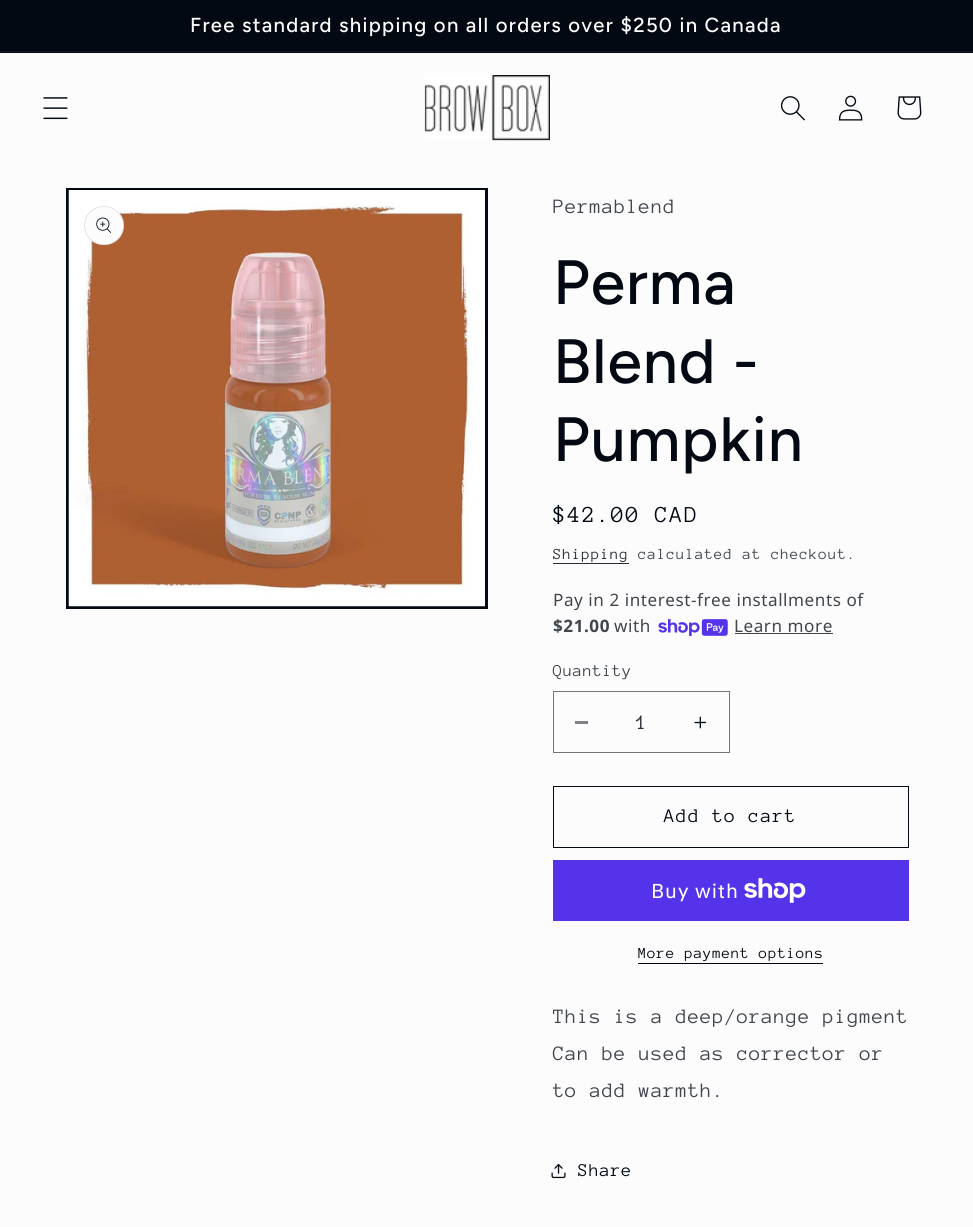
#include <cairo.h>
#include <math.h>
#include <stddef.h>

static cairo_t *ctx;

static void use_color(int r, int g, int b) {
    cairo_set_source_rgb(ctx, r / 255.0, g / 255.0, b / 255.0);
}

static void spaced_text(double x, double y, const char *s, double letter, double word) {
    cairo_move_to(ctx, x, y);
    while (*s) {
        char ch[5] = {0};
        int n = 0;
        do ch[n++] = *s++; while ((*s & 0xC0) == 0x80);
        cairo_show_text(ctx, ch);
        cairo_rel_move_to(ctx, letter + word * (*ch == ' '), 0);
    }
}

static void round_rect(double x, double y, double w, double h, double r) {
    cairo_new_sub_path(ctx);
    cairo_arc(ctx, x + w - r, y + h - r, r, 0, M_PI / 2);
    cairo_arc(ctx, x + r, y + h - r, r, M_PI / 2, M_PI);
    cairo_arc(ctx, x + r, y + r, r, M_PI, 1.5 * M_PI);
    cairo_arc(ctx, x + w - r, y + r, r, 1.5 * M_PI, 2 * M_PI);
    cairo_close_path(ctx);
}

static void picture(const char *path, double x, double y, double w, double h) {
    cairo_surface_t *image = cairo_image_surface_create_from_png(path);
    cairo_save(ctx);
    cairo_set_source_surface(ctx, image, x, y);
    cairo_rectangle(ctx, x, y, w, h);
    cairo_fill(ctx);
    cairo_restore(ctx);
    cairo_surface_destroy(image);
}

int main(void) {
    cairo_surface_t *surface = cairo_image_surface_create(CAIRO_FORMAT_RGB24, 973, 1227);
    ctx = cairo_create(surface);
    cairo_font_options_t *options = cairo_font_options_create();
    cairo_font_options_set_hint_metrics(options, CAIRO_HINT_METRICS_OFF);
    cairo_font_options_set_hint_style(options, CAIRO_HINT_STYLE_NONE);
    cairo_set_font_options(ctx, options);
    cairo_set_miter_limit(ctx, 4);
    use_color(252, 252, 252);
    cairo_paint(ctx);
    use_color(2, 9, 18);
    cairo_rectangle(ctx, 0, 0, 973, 53);
    cairo_fill(ctx);
    use_color(22, 28, 37);
    cairo_rectangle(ctx, 0, 51, 973, 1);
    cairo_fill(ctx);
    cairo_select_font_face(ctx, "Figtree Medium", CAIRO_FONT_SLANT_NORMAL, CAIRO_FONT_WEIGHT_NORMAL);
    cairo_set_font_size(ctx, 20.3);
    use_color(255, 255, 255);
    spaced_text(190, 32, "Free standard shipping on all orders over $250 in Canada", 1.3, 0);
    picture("img1.png", 43, 97, 25, 23);
    picture("img2.png", 424, 75, 126, 66);
    picture("img3.png", 780, 96, 25, 25);
    picture("img4.png", 838, 95, 25, 26);
    picture("img5.png", 897, 96, 25, 24);
    cairo_rectangle(ctx, 67.5, 189.5, 419, 418);
    use_color(2, 9, 18);
    cairo_set_line_width(ctx, 3);
    cairo_stroke(ctx);
    picture("img6.png", 68, 190, 417, 417);
    use_color(252, 252, 252);
    round_rect(84, 206, 40, 39, 19.5);
    cairo_fill(ctx);
    round_rect(84.5, 206.5, 39, 38, 19);
    cairo_set_source_rgba(ctx, 0.008, 0.035, 0.071, 0.1);
    cairo_set_line_width(ctx, 1);
    cairo_stroke(ctx);
    picture("img7.png", 96, 217, 15, 17);
    cairo_select_font_face(ctx, "Anonymous Pro", CAIRO_FONT_SLANT_NORMAL, CAIRO_FONT_WEIGHT_NORMAL);
    cairo_set_font_size(ctx, 21);
    use_color(65, 70, 77);
    spaced_text(553, 213, "Permablend", 0.8, 0);
    cairo_select_font_face(ctx, "Figtree Medium", CAIRO_FONT_SLANT_NORMAL, CAIRO_FONT_WEIGHT_NORMAL);
    cairo_set_font_size(ctx, 62.5);
    use_color(2, 9, 18);
    spaced_text(553, 304, "Perma", 1, 0);
    spaced_text(553, 383, "Blend -", 1, 0);
    spaced_text(553, 461, "Pumpkin", 1, 0);
    cairo_select_font_face(ctx, "Anonymous Pro", CAIRO_FONT_SLANT_NORMAL, CAIRO_FONT_WEIGHT_NORMAL);
    cairo_set_font_size(ctx, 23.5);
    spaced_text(553, 522, "$42.00 CAD", 1.75, 0);
    cairo_set_font_size(ctx, 15.75);
    use_color(40, 45, 53);
    spaced_text(553, 559, "Shipping", 0.9, 0);
    cairo_rectangle(ctx, 553, 563, 76, 1);
    cairo_fill(ctx);
    use_color(65, 70, 77);
    spaced_text(638, 559, "calculated at checkout.", 0.9, 0);
    cairo_select_font_face(ctx, "Noto Sans", CAIRO_FONT_SLANT_NORMAL, CAIRO_FONT_WEIGHT_NORMAL);
    cairo_set_font_size(ctx, 17.1);
    spaced_text(553, 606, "Pay in 2 interest-free installments of", 0.55, 0);
    cairo_select_font_face(ctx, "Noto Sans", CAIRO_FONT_SLANT_NORMAL, CAIRO_FONT_WEIGHT_BOLD);
    spaced_text(553, 632, "$21.00", 0.55, 0);
    cairo_select_font_face(ctx, "Noto Sans", CAIRO_FONT_SLANT_NORMAL, CAIRO_FONT_WEIGHT_NORMAL);
    spaced_text(614, 632, "with", 0.55, 0);
    picture("img8.png", 658, 619, 70, 17);
    spaced_text(734, 632, "Learn more", 0.55, 0);
    cairo_rectangle(ctx, 735, 633, 98, 1);
    cairo_fill(ctx);
    cairo_select_font_face(ctx, "Anonymous Pro", CAIRO_FONT_SLANT_NORMAL, CAIRO_FONT_WEIGHT_NORMAL);
    spaced_text(553, 676, "Quantity", 0.55, 0);
    use_color(127, 131, 135);
    cairo_rectangle(ctx, 575, 721, 13, 3);
    cairo_fill(ctx);
    picture("img9.png", 694, 716, 13, 13);
    cairo_rectangle(ctx, 553.5, 691.5, 176, 61);
    use_color(114, 118, 123);
    cairo_stroke(ctx);
    cairo_set_font_size(ctx, 21);
    use_color(40, 45, 53);
    cairo_move_to(ctx, 636, 729);
    cairo_show_text(ctx, "1");
    cairo_rectangle(ctx, 553.5, 786.5, 355, 61);
    use_color(2, 9, 18);
    cairo_stroke(ctx);
    cairo_set_font_size(ctx, 19.75);
    spaced_text(664, 822, "Add to cart", 1.3, 0);
    use_color(84, 51, 235);
    cairo_rectangle(ctx, 553, 860, 356, 61);
    cairo_fill(ctx);
    cairo_select_font_face(ctx, "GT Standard", CAIRO_FONT_SLANT_NORMAL, CAIRO_FONT_WEIGHT_NORMAL);
    cairo_set_font_size(ctx, 20);
    use_color(255, 255, 255);
    spaced_text(651, 898, "Buy with", 0.8, 0);
    picture("img10.png", 744, 878, 62, 25);
    cairo_select_font_face(ctx, "Anonymous Pro", CAIRO_FONT_SLANT_NORMAL, CAIRO_FONT_WEIGHT_NORMAL);
    cairo_set_font_size(ctx, 15.75);
    use_color(2, 9, 18);
    spaced_text(638, 958, "More payment options", 0.7, 0);
    cairo_rectangle(ctx, 638, 963, 185, 1);
    cairo_fill(ctx);
    cairo_set_font_size(ctx, 21);
    use_color(65, 70, 77);
    spaced_text(553, 1023, "This is a deep/orange pigment", 0.8, 0);
    spaced_text(553, 1060, "Can be used as corrector or", 0.8, 0);
    spaced_text(553, 1097, "to add warmth.", 0.8, 0);
    picture("img11.png", 551, 1164, 15, 15);
    cairo_set_font_size(ctx, 18.5);
    use_color(2, 9, 18);
    spaced_text(578, 1176, "Share", 0.8, 0);
    cairo_surface_write_to_png(surface, "result.png");
    cairo_font_options_destroy(options);
    cairo_destroy(ctx);
    cairo_surface_destroy(surface);
    return 0;
}
